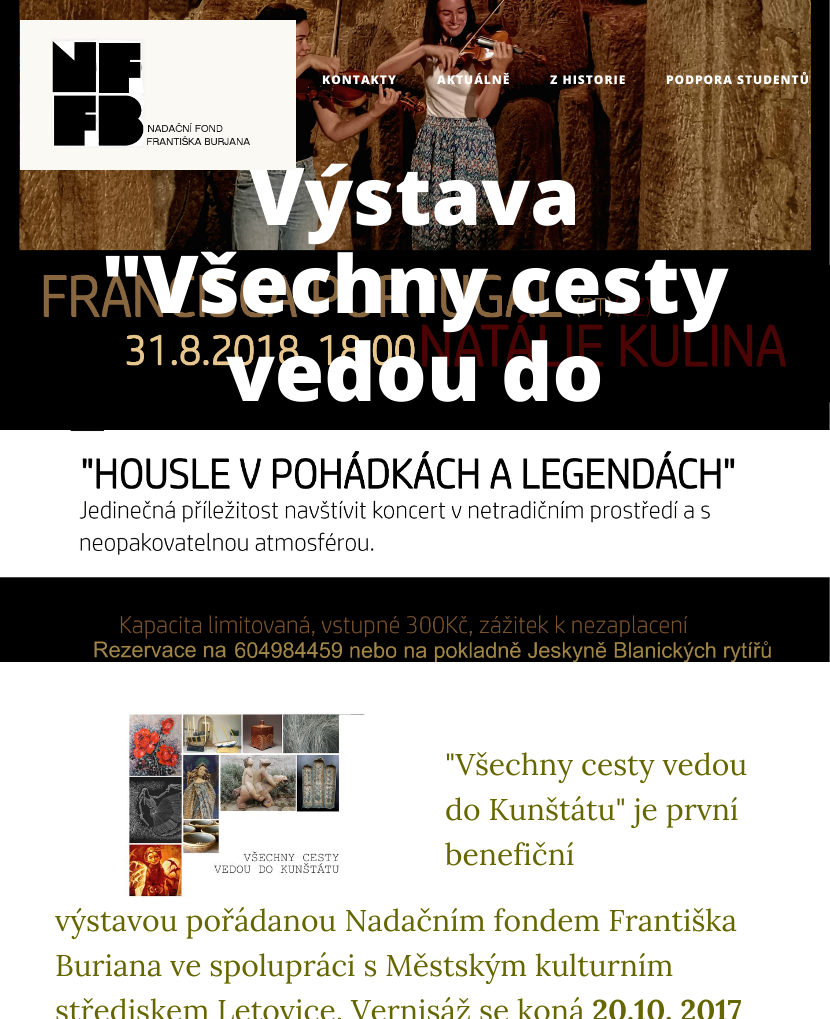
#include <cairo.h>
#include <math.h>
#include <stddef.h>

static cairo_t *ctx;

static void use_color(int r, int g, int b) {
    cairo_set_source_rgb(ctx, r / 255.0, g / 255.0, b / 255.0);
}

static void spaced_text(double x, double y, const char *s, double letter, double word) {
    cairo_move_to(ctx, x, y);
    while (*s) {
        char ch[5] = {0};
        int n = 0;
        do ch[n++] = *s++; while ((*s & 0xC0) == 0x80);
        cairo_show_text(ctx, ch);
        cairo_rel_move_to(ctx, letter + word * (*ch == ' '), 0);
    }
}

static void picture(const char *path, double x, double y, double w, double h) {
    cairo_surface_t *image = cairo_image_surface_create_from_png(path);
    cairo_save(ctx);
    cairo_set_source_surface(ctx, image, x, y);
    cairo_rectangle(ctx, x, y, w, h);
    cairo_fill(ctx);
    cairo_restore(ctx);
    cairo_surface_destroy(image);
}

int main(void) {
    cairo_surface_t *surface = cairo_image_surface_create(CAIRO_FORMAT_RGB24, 830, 1019);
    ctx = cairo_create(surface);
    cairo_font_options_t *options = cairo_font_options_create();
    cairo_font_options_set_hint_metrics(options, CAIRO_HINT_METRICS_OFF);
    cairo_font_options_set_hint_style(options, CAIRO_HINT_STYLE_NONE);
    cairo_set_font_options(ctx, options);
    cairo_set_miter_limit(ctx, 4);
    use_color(255, 255, 255);
    cairo_paint(ctx);
    picture("img2.png", 0, 0, 830, 662);
    cairo_select_font_face(ctx, "Open Sans ExtraBold", CAIRO_FONT_SLANT_NORMAL, CAIRO_FONT_WEIGHT_NORMAL);
    cairo_set_font_size(ctx, 80);
    use_color(255, 255, 255);
    cairo_move_to(ctx, 249, 225);
    cairo_show_text(ctx, "Výstava");
    picture("img1.png", 20, 20, 276, 150);
    cairo_set_font_size(ctx, 12);
    spaced_text(322, 84, "KONTAKTY", 1, 0);
    spaced_text(437, 84, "AKTUÁLNĚ", 1, 0);
    spaced_text(550, 84, "Z HISTORIE", 1, 0);
    spaced_text(666, 84, "PODPORA STUDENTŮ", 1, 0);
    cairo_set_font_size(ctx, 80);
    cairo_move_to(ctx, 101, 313);
    cairo_show_text(ctx, "\"Všechny cesty");
    cairo_move_to(ctx, 226, 401);
    cairo_show_text(ctx, "vedou do");
    picture("img3.png", 123, 712, 242, 186);
    cairo_select_font_face(ctx, "Lora", CAIRO_FONT_SLANT_NORMAL, CAIRO_FONT_WEIGHT_NORMAL);
    cairo_set_font_size(ctx, 30);
    use_color(102, 102, 0);
    cairo_move_to(ctx, 445, 775);
    cairo_show_text(ctx, "\"Všechny cesty vedou");
    cairo_move_to(ctx, 445, 820);
    cairo_show_text(ctx, "do Kunštátu\" je první");
    cairo_move_to(ctx, 445, 865);
    cairo_show_text(ctx, "benefiční");
    cairo_move_to(ctx, 55, 931);
    cairo_show_text(ctx, "výstavou pořádanou Nadačním fondem Františka");
    cairo_move_to(ctx, 55, 976);
    cairo_show_text(ctx, "Buriana ve spolupráci s Městským kulturním");
    cairo_move_to(ctx, 55, 1021);
    cairo_show_text(ctx, "střediskem Letovice. Vernisáž se koná");
    cairo_select_font_face(ctx, "Lora", CAIRO_FONT_SLANT_NORMAL, CAIRO_FONT_WEIGHT_BOLD);
    cairo_move_to(ctx, 592, 1021);
    cairo_show_text(ctx, "20.10. 2017");
    cairo_surface_write_to_png(surface, "result.png");
    cairo_font_options_destroy(options);
    cairo_destroy(ctx);
    cairo_surface_destroy(surface);
    return 0;
}
